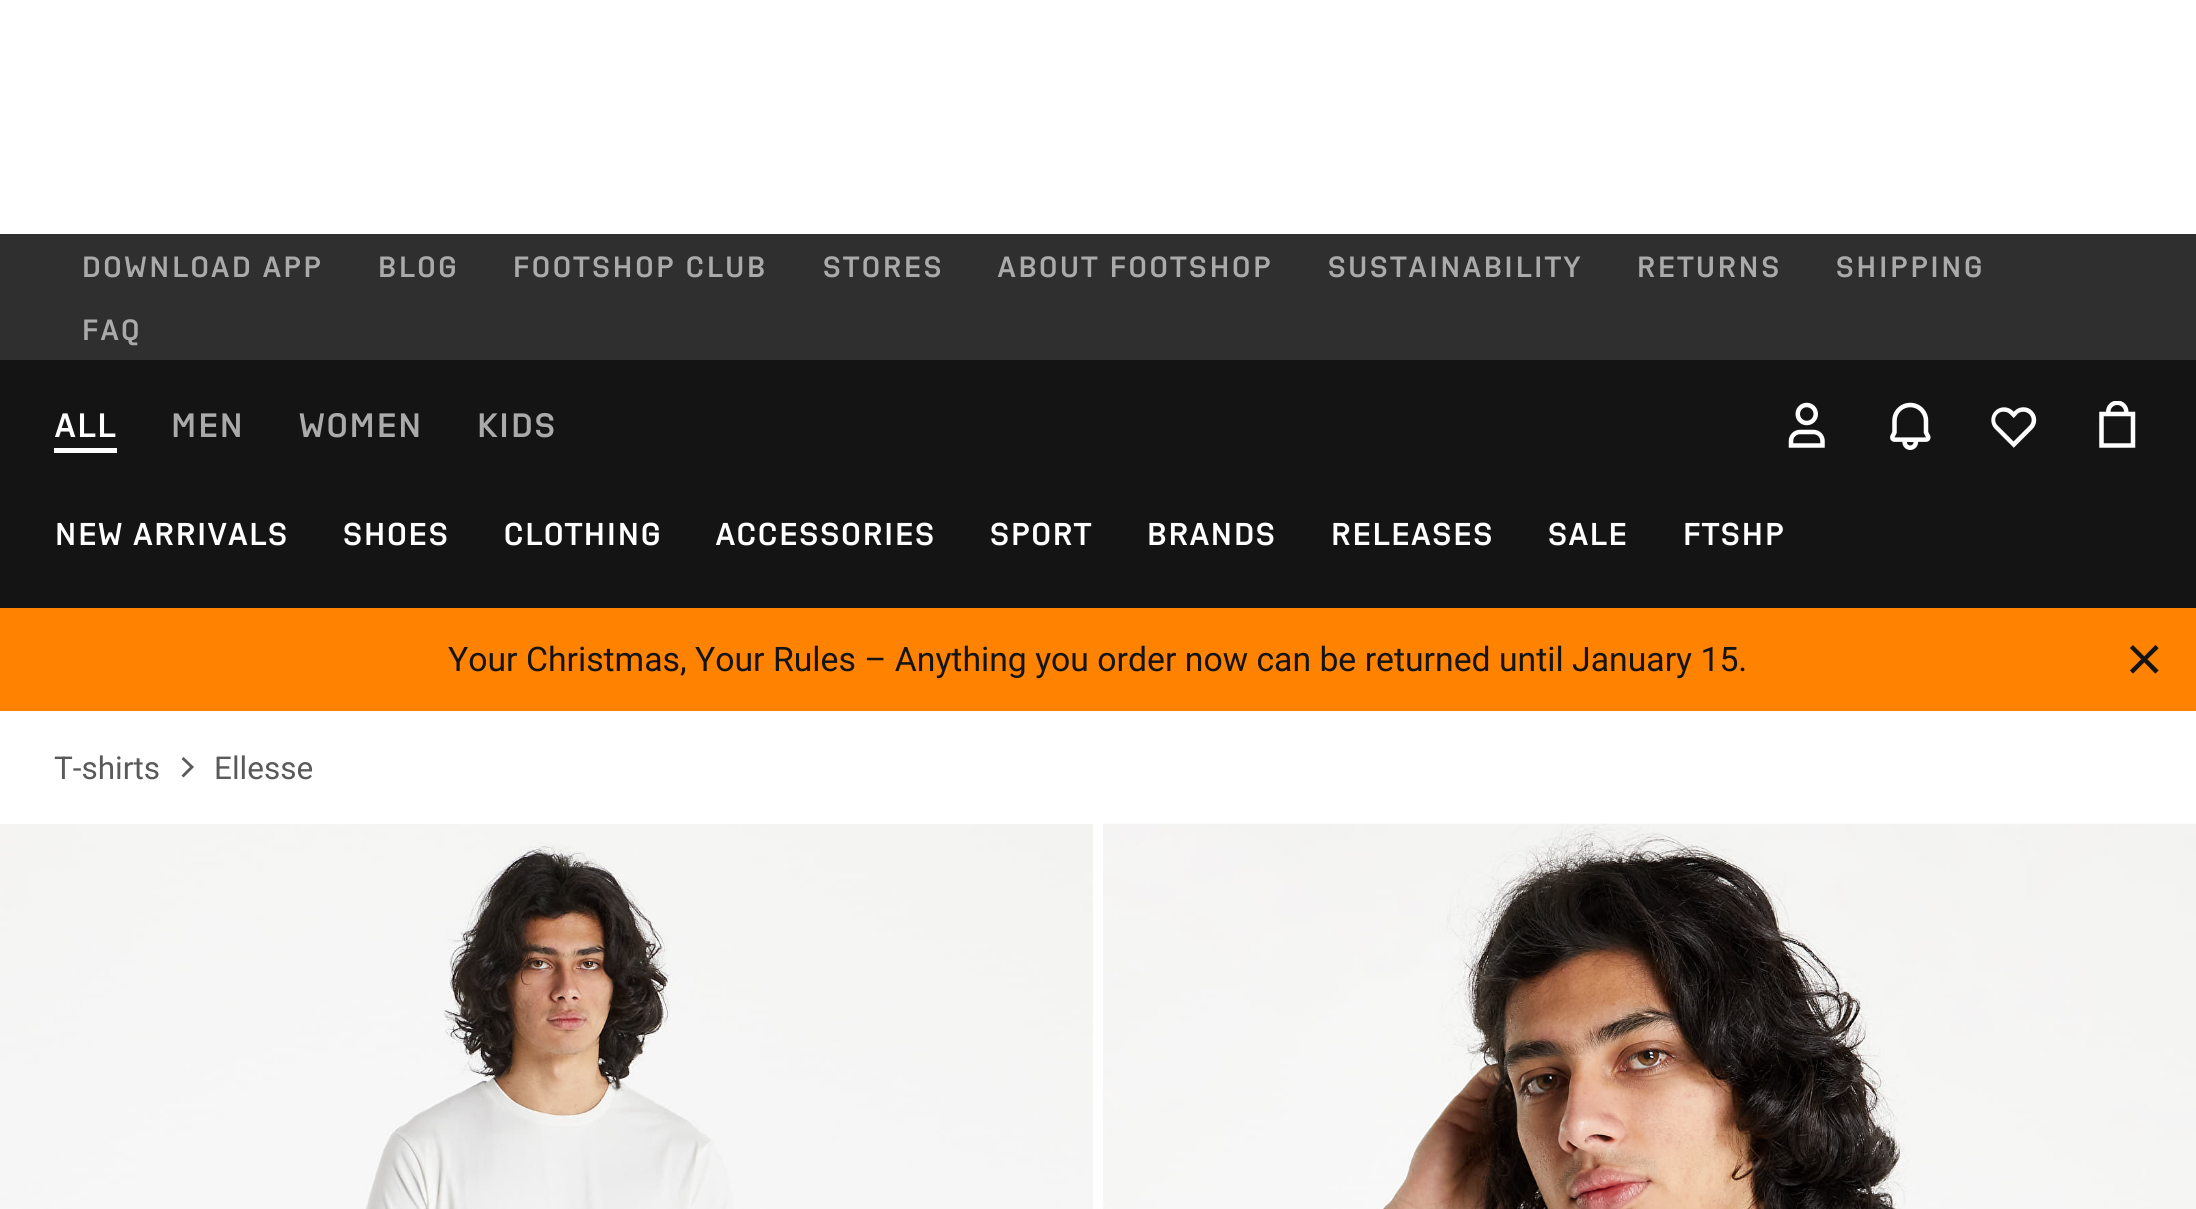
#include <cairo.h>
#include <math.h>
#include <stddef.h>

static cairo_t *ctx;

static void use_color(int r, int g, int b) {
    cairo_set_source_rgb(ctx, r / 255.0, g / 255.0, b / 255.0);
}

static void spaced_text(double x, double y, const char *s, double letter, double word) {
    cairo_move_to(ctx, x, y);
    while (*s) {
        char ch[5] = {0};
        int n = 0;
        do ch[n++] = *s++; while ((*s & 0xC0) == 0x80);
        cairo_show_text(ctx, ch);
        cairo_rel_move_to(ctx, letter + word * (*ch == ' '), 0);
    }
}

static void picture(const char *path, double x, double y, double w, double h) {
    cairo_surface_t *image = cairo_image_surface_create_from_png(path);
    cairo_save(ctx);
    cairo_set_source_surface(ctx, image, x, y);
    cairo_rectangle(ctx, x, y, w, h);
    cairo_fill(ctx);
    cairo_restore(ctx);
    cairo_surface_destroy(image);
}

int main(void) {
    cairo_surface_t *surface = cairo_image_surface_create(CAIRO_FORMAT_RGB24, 2196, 1209);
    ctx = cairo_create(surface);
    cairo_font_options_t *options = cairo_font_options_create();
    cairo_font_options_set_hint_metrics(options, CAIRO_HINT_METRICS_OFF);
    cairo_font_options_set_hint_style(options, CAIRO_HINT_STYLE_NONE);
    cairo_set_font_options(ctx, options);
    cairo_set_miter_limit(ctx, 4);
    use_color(255, 255, 255);
    cairo_paint(ctx);
    use_color(47, 47, 47);
    cairo_rectangle(ctx, 0, 234, 2196, 126);
    cairo_fill(ctx);
    cairo_select_font_face(ctx, "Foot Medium", CAIRO_FONT_SLANT_NORMAL, CAIRO_FONT_WEIGHT_NORMAL);
    cairo_set_font_size(ctx, 29.25);
    use_color(170, 170, 170);
    spaced_text(81, 277, "DOWNLOAD APP", 1.1, 0);
    spaced_text(377, 277, "BLOG", 1.1, 0);
    spaced_text(512, 277, "FOOTSHOP CLUB", 1.1, 0);
    spaced_text(822, 277, "STORES", 1.1, 0);
    spaced_text(997, 277, "ABOUT FOOTSHOP", 1.1, 0);
    spaced_text(1327, 277, "SUSTAINABILITY", 1.1, 0);
    spaced_text(1636, 277, "RETURNS", 1.1, 0);
    spaced_text(1835, 277, "SHIPPING", 1.1, 0);
    spaced_text(81, 340, "FAQ", 1.1, 0);
    use_color(20, 20, 20);
    cairo_rectangle(ctx, 0, 360, 2196, 248);
    cairo_fill(ctx);
    cairo_set_font_size(ctx, 33.75);
    use_color(255, 255, 255);
    cairo_move_to(ctx, 54, 437);
    cairo_show_text(ctx, "ALL");
    cairo_rectangle(ctx, 54, 448, 63, 5);
    cairo_fill(ctx);
    use_color(170, 170, 170);
    cairo_move_to(ctx, 170, 437);
    cairo_show_text(ctx, "MEN");
    cairo_move_to(ctx, 298, 437);
    cairo_show_text(ctx, "WOMEN");
    cairo_move_to(ctx, 476, 437);
    cairo_show_text(ctx, "KIDS");
    picture("img1.png", 1788, 402, 37, 46);
    picture("img2.png", 1890, 402, 41, 48);
    picture("img3.png", 1991, 407, 46, 41);
    picture("img4.png", 2099, 401, 37, 47);
    cairo_set_font_size(ctx, 31.5);
    use_color(255, 255, 255);
    cairo_move_to(ctx, 54, 545);
    cairo_show_text(ctx, "NEW ARRIVALS");
    cairo_move_to(ctx, 342, 545);
    cairo_show_text(ctx, "SHOES");
    cairo_move_to(ctx, 503, 545);
    cairo_show_text(ctx, "CLOTHING");
    cairo_move_to(ctx, 715, 545);
    cairo_show_text(ctx, "ACCESSORIES");
    cairo_move_to(ctx, 989, 545);
    cairo_show_text(ctx, "SPORT");
    cairo_move_to(ctx, 1146, 545);
    cairo_show_text(ctx, "BRANDS");
    cairo_move_to(ctx, 1330, 545);
    cairo_show_text(ctx, "RELEASES");
    cairo_move_to(ctx, 1547, 545);
    cairo_show_text(ctx, "SALE");
    cairo_move_to(ctx, 1682, 545);
    cairo_show_text(ctx, "FTSHP");
    use_color(255, 130, 0);
    cairo_rectangle(ctx, 0, 608, 2196, 103);
    cairo_fill(ctx);
    cairo_select_font_face(ctx, "Roboto", CAIRO_FONT_SLANT_NORMAL, CAIRO_FONT_WEIGHT_NORMAL);
    cairo_set_font_size(ctx, 33.75);
    use_color(20, 20, 20);
    cairo_move_to(ctx, 448, 671);
    cairo_show_text(ctx, "Your Christmas, Your Rules – Anything you order now can be returned until January 15.");
    picture("img5.png", 2129, 645, 30, 29);
    cairo_set_font_size(ctx, 31.5);
    use_color(90, 90, 90);
    cairo_move_to(ctx, 54, 779);
    cairo_show_text(ctx, "T-shirts");
    cairo_new_path(ctx);
    cairo_move_to(ctx, 183.5, 757);
    cairo_line_to(ctx, 181.5, 759);
    cairo_line_to(ctx, 190, 767);
    cairo_line_to(ctx, 181.5, 775.5);
    cairo_line_to(ctx, 183.5, 777.5);
    cairo_line_to(ctx, 194, 767);
    cairo_close_path(ctx);
    cairo_fill(ctx);
    cairo_move_to(ctx, 214, 779);
    cairo_show_text(ctx, "Ellesse");
    picture("img6.png", 0, 824, 1093, 385);
    picture("img7.png", 1103, 823, 1093, 386);
    cairo_surface_write_to_png(surface, "result.png");
    cairo_font_options_destroy(options);
    cairo_destroy(ctx);
    cairo_surface_destroy(surface);
    return 0;
}
